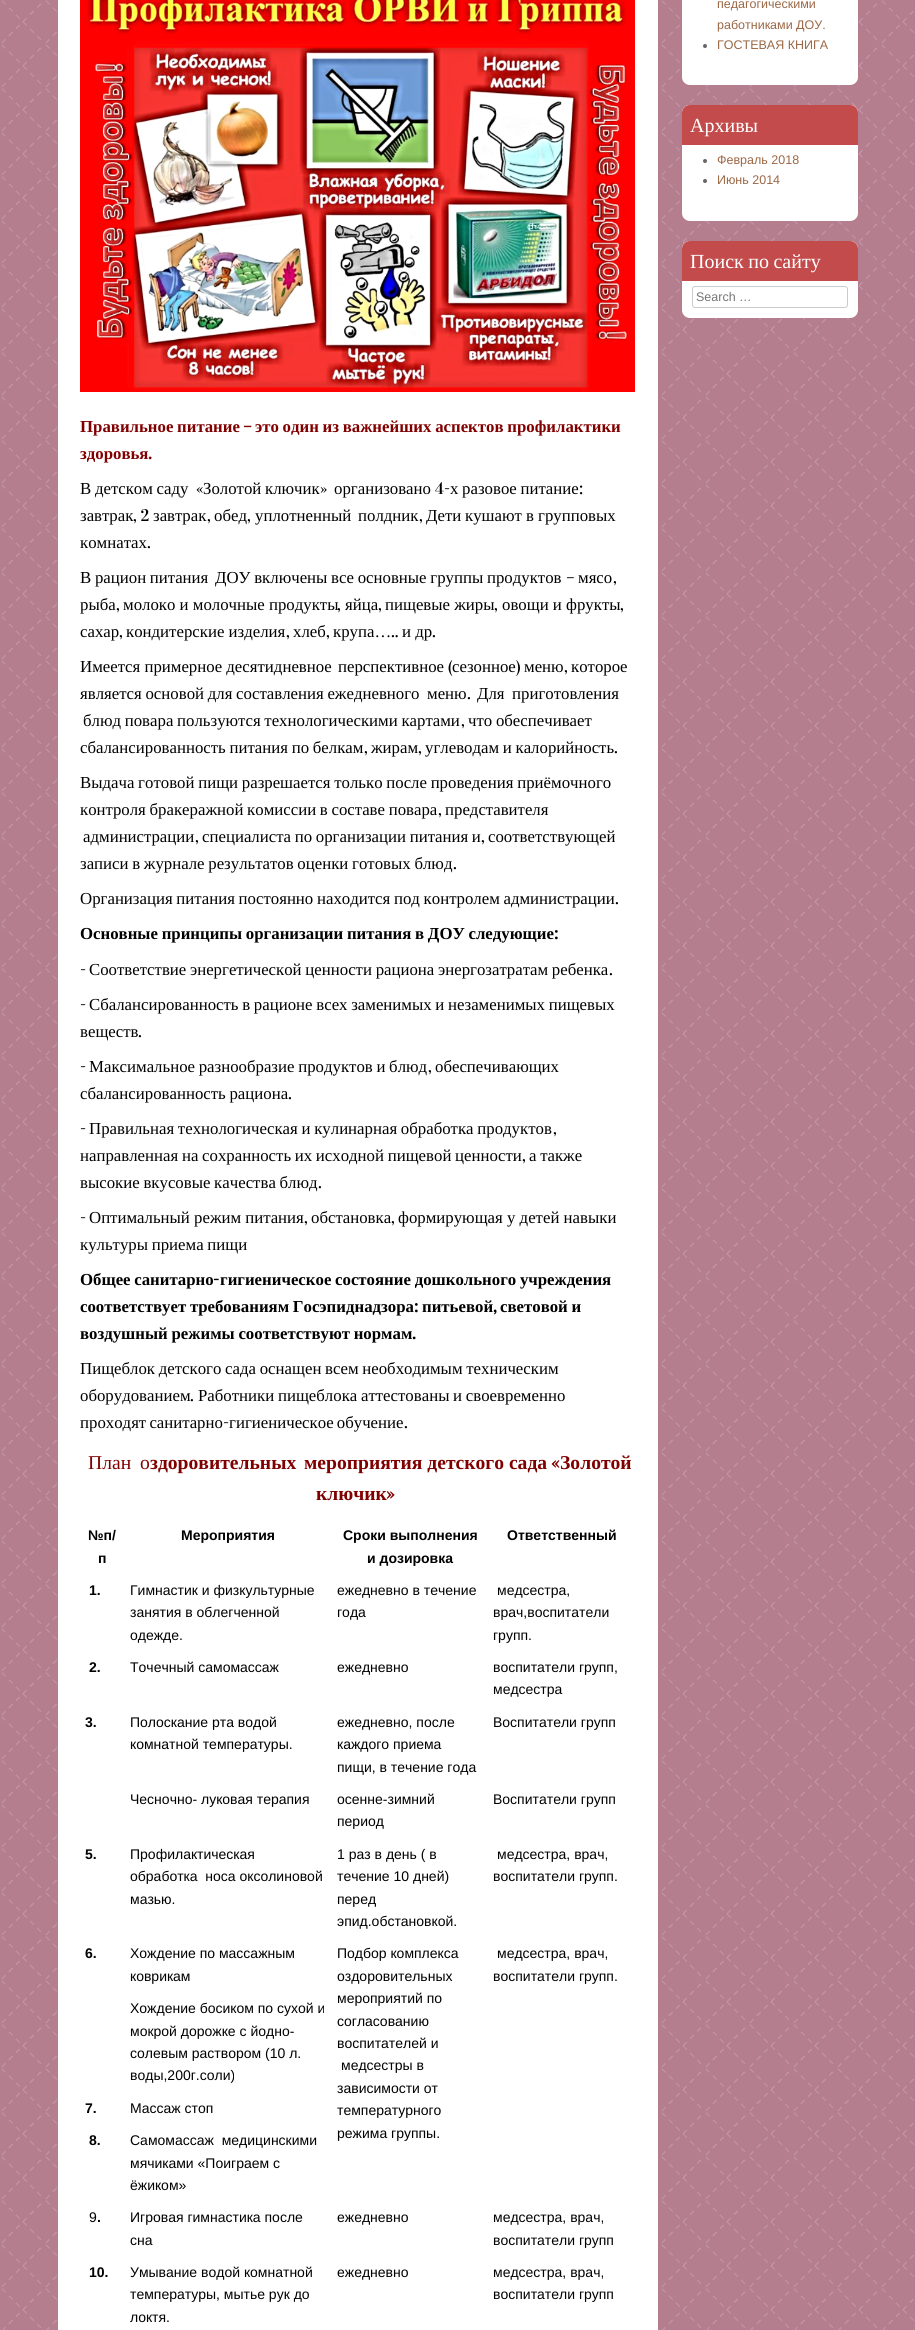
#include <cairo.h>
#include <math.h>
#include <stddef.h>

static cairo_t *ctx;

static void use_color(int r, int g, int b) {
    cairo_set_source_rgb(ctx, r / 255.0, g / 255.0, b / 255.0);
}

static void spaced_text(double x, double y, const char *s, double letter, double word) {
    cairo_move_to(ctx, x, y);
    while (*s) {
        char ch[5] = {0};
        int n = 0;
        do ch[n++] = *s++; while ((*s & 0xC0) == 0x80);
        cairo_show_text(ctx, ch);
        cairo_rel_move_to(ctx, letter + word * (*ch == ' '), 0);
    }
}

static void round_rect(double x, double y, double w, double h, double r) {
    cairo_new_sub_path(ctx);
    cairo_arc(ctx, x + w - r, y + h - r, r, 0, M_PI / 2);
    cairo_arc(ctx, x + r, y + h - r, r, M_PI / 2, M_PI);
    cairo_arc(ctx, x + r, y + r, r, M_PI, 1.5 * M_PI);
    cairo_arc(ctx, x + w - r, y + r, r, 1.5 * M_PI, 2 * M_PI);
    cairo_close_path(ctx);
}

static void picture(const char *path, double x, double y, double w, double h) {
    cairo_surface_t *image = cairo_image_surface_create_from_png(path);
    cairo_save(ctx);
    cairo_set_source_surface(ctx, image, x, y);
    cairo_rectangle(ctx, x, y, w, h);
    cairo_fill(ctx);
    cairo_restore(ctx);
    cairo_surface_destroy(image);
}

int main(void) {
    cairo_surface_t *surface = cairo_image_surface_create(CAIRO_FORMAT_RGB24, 915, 2330);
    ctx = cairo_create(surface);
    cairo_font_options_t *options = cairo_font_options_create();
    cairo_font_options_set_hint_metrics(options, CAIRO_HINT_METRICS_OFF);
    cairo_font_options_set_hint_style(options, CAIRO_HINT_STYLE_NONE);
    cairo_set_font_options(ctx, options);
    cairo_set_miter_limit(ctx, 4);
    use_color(180, 126, 142);
    cairo_paint(ctx);
    picture("img1.png", 1, 0, 913, 2330);
    use_color(255, 255, 255);
    cairo_new_path(ctx);
    cairo_move_to(ctx, 682, -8);
    cairo_line_to(ctx, 858, -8);
    cairo_line_to(ctx, 858, 77);
    cairo_curve_to(ctx, 858, 81.5, 854.5, 85, 850, 85);
    cairo_line_to(ctx, 690, 85);
    cairo_curve_to(ctx, 685.5, 85, 682, 81.5, 682, 77);
    cairo_close_path(ctx);
    cairo_fill(ctx);
    cairo_select_font_face(ctx, "Liberation Sans", CAIRO_FONT_SLANT_NORMAL, CAIRO_FONT_WEIGHT_NORMAL);
    cairo_set_font_size(ctx, 12.5);
    use_color(155, 103, 69);
    cairo_move_to(ctx, 717, 8);
    cairo_show_text(ctx, "педагогическими");
    cairo_move_to(ctx, 717, 29);
    cairo_show_text(ctx, "работниками ДОУ.");
    use_color(102, 102, 102);
    cairo_new_path(ctx);
    cairo_arc(ctx, 705, 46, 2, 0, 2 * M_PI);
    cairo_fill(ctx);
    use_color(155, 103, 69);
    cairo_move_to(ctx, 717, 49);
    cairo_show_text(ctx, "ГОСТЕВАЯ КНИГА");
    use_color(255, 255, 255);
    round_rect(682, 105, 176, 15, 7.5);
    cairo_fill(ctx);
    use_color(196, 75, 75);
    cairo_new_path(ctx);
    cairo_move_to(ctx, 690, 105);
    cairo_line_to(ctx, 850, 105);
    cairo_curve_to(ctx, 854.5, 105, 858, 108.5, 858, 113);
    cairo_line_to(ctx, 858, 145);
    cairo_line_to(ctx, 682, 145);
    cairo_line_to(ctx, 682, 113);
    cairo_curve_to(ctx, 682, 108.5, 685.5, 105, 690, 105);
    cairo_close_path(ctx);
    cairo_fill(ctx);
    cairo_select_font_face(ctx, "Liberation Serif", CAIRO_FONT_SLANT_NORMAL, CAIRO_FONT_WEIGHT_NORMAL);
    cairo_set_font_size(ctx, 20);
    use_color(255, 255, 255);
    cairo_move_to(ctx, 690, 132);
    cairo_show_text(ctx, "Архивы");
    cairo_new_path(ctx);
    cairo_move_to(ctx, 682, 145);
    cairo_line_to(ctx, 858, 145);
    cairo_line_to(ctx, 858, 213);
    cairo_curve_to(ctx, 858, 217.5, 854.5, 221, 850, 221);
    cairo_line_to(ctx, 690, 221);
    cairo_curve_to(ctx, 685.5, 221, 682, 217.5, 682, 213);
    cairo_close_path(ctx);
    cairo_fill(ctx);
    use_color(102, 102, 102);
    cairo_arc(ctx, 705, 161, 2, 0, 2 * M_PI);
    cairo_fill(ctx);
    cairo_select_font_face(ctx, "Liberation Sans", CAIRO_FONT_SLANT_NORMAL, CAIRO_FONT_WEIGHT_NORMAL);
    cairo_set_font_size(ctx, 12.5);
    use_color(155, 103, 69);
    cairo_move_to(ctx, 717, 164);
    cairo_show_text(ctx, "Февраль 2018");
    use_color(102, 102, 102);
    cairo_new_path(ctx);
    cairo_arc(ctx, 705, 181, 2, 0, 2 * M_PI);
    cairo_fill(ctx);
    use_color(155, 103, 69);
    cairo_move_to(ctx, 717, 184);
    cairo_show_text(ctx, "Июнь 2014");
    use_color(255, 255, 255);
    round_rect(682, 241, 176, 15, 7.5);
    cairo_fill(ctx);
    use_color(196, 75, 75);
    cairo_new_path(ctx);
    cairo_move_to(ctx, 690, 241);
    cairo_line_to(ctx, 850, 241);
    cairo_curve_to(ctx, 854.5, 241, 858, 244.5, 858, 249);
    cairo_line_to(ctx, 858, 281);
    cairo_line_to(ctx, 682, 281);
    cairo_line_to(ctx, 682, 249);
    cairo_curve_to(ctx, 682, 244.5, 685.5, 241, 690, 241);
    cairo_close_path(ctx);
    cairo_fill(ctx);
    cairo_select_font_face(ctx, "Liberation Serif", CAIRO_FONT_SLANT_NORMAL, CAIRO_FONT_WEIGHT_NORMAL);
    cairo_set_font_size(ctx, 20);
    use_color(255, 255, 255);
    spaced_text(690, 268, "Поиск по сайту", 0, -0.5);
    cairo_new_path(ctx);
    cairo_move_to(ctx, 682, 281);
    cairo_line_to(ctx, 858, 281);
    cairo_line_to(ctx, 858, 310);
    cairo_curve_to(ctx, 858, 314.5, 854.5, 318, 850, 318);
    cairo_line_to(ctx, 690, 318);
    cairo_curve_to(ctx, 685.5, 318, 682, 314.5, 682, 310);
    cairo_close_path(ctx);
    cairo_fill(ctx);
    round_rect(692.5, 286.5, 155, 21, 2.5);
    use_color(204, 204, 204);
    cairo_set_line_width(ctx, 1);
    cairo_stroke(ctx);
    cairo_select_font_face(ctx, "Liberation Sans", CAIRO_FONT_SLANT_NORMAL, CAIRO_FONT_WEIGHT_NORMAL);
    cairo_set_font_size(ctx, 12.5);
    use_color(117, 117, 117);
    cairo_move_to(ctx, 696, 301);
    cairo_show_text(ctx, "Search …");
    use_color(255, 255, 255);
    cairo_rectangle(ctx, 58, 0, 600, 2330);
    cairo_fill(ctx);
    picture("img2.png", 80, 0, 555, 392);
    cairo_select_font_face(ctx, "Liberation Serif", CAIRO_FONT_SLANT_NORMAL, CAIRO_FONT_WEIGHT_BOLD);
    cairo_set_font_size(ctx, 16.8);
    use_color(128, 0, 0);
    spaced_text(80, 432, "Правильное питание", 0, -0.5);
    cairo_select_font_face(ctx, "Vidaloka", CAIRO_FONT_SLANT_NORMAL, CAIRO_FONT_WEIGHT_BOLD);
    cairo_move_to(ctx, 243, 432);
    cairo_show_text(ctx, "–");
    cairo_select_font_face(ctx, "Liberation Serif", CAIRO_FONT_SLANT_NORMAL, CAIRO_FONT_WEIGHT_BOLD);
    spaced_text(255, 432, "это один из важнейших аспектов профилактики", 0, -0.5);
    cairo_move_to(ctx, 80, 459);
    cairo_show_text(ctx, "здоровья");
    cairo_select_font_face(ctx, "Vidaloka", CAIRO_FONT_SLANT_NORMAL, CAIRO_FONT_WEIGHT_BOLD);
    cairo_move_to(ctx, 148, 459);
    cairo_show_text(ctx, ".");
    cairo_select_font_face(ctx, "Liberation Serif", CAIRO_FONT_SLANT_NORMAL, CAIRO_FONT_WEIGHT_NORMAL);
    use_color(0, 0, 0);
    spaced_text(80, 494, "В детском саду", 0, -0.5);
    cairo_select_font_face(ctx, "Vidaloka", CAIRO_FONT_SLANT_NORMAL, CAIRO_FONT_WEIGHT_NORMAL);
    cairo_move_to(ctx, 196, 494);
    cairo_show_text(ctx, "«");
    cairo_select_font_face(ctx, "Liberation Serif", CAIRO_FONT_SLANT_NORMAL, CAIRO_FONT_WEIGHT_NORMAL);
    spaced_text(203, 494, "Золотой ключик", 0, -0.5);
    cairo_select_font_face(ctx, "Vidaloka", CAIRO_FONT_SLANT_NORMAL, CAIRO_FONT_WEIGHT_NORMAL);
    cairo_move_to(ctx, 320, 494);
    cairo_show_text(ctx, "»");
    cairo_select_font_face(ctx, "Liberation Serif", CAIRO_FONT_SLANT_NORMAL, CAIRO_FONT_WEIGHT_NORMAL);
    cairo_move_to(ctx, 334, 494);
    cairo_show_text(ctx, "организовано");
    cairo_select_font_face(ctx, "Vidaloka", CAIRO_FONT_SLANT_NORMAL, CAIRO_FONT_WEIGHT_NORMAL);
    cairo_move_to(ctx, 435, 494);
    cairo_show_text(ctx, "4-");
    cairo_select_font_face(ctx, "Liberation Serif", CAIRO_FONT_SLANT_NORMAL, CAIRO_FONT_WEIGHT_NORMAL);
    spaced_text(450, 494, "х разовое питание", 0, -0.5);
    cairo_select_font_face(ctx, "Vidaloka", CAIRO_FONT_SLANT_NORMAL, CAIRO_FONT_WEIGHT_NORMAL);
    cairo_move_to(ctx, 579, 494);
    cairo_show_text(ctx, ":");
    cairo_select_font_face(ctx, "Liberation Serif", CAIRO_FONT_SLANT_NORMAL, CAIRO_FONT_WEIGHT_NORMAL);
    cairo_move_to(ctx, 80, 521);
    cairo_show_text(ctx, "завтрак");
    cairo_select_font_face(ctx, "Vidaloka", CAIRO_FONT_SLANT_NORMAL, CAIRO_FONT_WEIGHT_NORMAL);
    cairo_move_to(ctx, 133, 521);
    cairo_show_text(ctx, ", 2");
    cairo_select_font_face(ctx, "Liberation Serif", CAIRO_FONT_SLANT_NORMAL, CAIRO_FONT_WEIGHT_NORMAL);
    cairo_move_to(ctx, 153, 521);
    cairo_show_text(ctx, "завтрак");
    cairo_select_font_face(ctx, "Vidaloka", CAIRO_FONT_SLANT_NORMAL, CAIRO_FONT_WEIGHT_NORMAL);
    cairo_move_to(ctx, 207, 521);
    cairo_show_text(ctx, ",");
    cairo_select_font_face(ctx, "Liberation Serif", CAIRO_FONT_SLANT_NORMAL, CAIRO_FONT_WEIGHT_NORMAL);
    cairo_move_to(ctx, 214, 521);
    cairo_show_text(ctx, "обед");
    cairo_select_font_face(ctx, "Vidaloka", CAIRO_FONT_SLANT_NORMAL, CAIRO_FONT_WEIGHT_NORMAL);
    cairo_move_to(ctx, 247, 521);
    cairo_show_text(ctx, ",");
    cairo_select_font_face(ctx, "Liberation Serif", CAIRO_FONT_SLANT_NORMAL, CAIRO_FONT_WEIGHT_NORMAL);
    cairo_move_to(ctx, 255, 521);
    cairo_show_text(ctx, "уплотненный");
    cairo_move_to(ctx, 358, 521);
    cairo_show_text(ctx, "полдник");
    cairo_select_font_face(ctx, "Vidaloka", CAIRO_FONT_SLANT_NORMAL, CAIRO_FONT_WEIGHT_NORMAL);
    cairo_move_to(ctx, 419, 521);
    cairo_show_text(ctx, ",");
    cairo_select_font_face(ctx, "Liberation Serif", CAIRO_FONT_SLANT_NORMAL, CAIRO_FONT_WEIGHT_NORMAL);
    cairo_move_to(ctx, 426, 521);
    cairo_show_text(ctx, "Дети");
    cairo_move_to(ctx, 465, 521);
    cairo_show_text(ctx, "кушают");
    cairo_move_to(ctx, 526, 521);
    cairo_show_text(ctx, "в");
    cairo_move_to(ctx, 538, 521);
    cairo_show_text(ctx, "групповых");
    cairo_move_to(ctx, 80, 548);
    cairo_show_text(ctx, "комнатах");
    cairo_select_font_face(ctx, "Vidaloka", CAIRO_FONT_SLANT_NORMAL, CAIRO_FONT_WEIGHT_NORMAL);
    cairo_move_to(ctx, 147, 548);
    cairo_show_text(ctx, ".");
    cairo_select_font_face(ctx, "Liberation Serif", CAIRO_FONT_SLANT_NORMAL, CAIRO_FONT_WEIGHT_NORMAL);
    spaced_text(80, 583, "В рацион питания", 0, -0.5);
    spaced_text(215, 583, "ДОУ включены все основные группы продуктов", 0, -0.5);
    cairo_select_font_face(ctx, "Vidaloka", CAIRO_FONT_SLANT_NORMAL, CAIRO_FONT_WEIGHT_NORMAL);
    cairo_move_to(ctx, 566, 583);
    cairo_show_text(ctx, "–");
    cairo_select_font_face(ctx, "Liberation Serif", CAIRO_FONT_SLANT_NORMAL, CAIRO_FONT_WEIGHT_NORMAL);
    cairo_move_to(ctx, 578, 583);
    cairo_show_text(ctx, "мясо");
    cairo_select_font_face(ctx, "Vidaloka", CAIRO_FONT_SLANT_NORMAL, CAIRO_FONT_WEIGHT_NORMAL);
    cairo_move_to(ctx, 613, 583);
    cairo_show_text(ctx, ",");
    cairo_select_font_face(ctx, "Liberation Serif", CAIRO_FONT_SLANT_NORMAL, CAIRO_FONT_WEIGHT_NORMAL);
    cairo_move_to(ctx, 80, 610);
    cairo_show_text(ctx, "рыба");
    cairo_select_font_face(ctx, "Vidaloka", CAIRO_FONT_SLANT_NORMAL, CAIRO_FONT_WEIGHT_NORMAL);
    cairo_move_to(ctx, 116, 610);
    cairo_show_text(ctx, ",");
    cairo_select_font_face(ctx, "Liberation Serif", CAIRO_FONT_SLANT_NORMAL, CAIRO_FONT_WEIGHT_NORMAL);
    cairo_move_to(ctx, 123, 610);
    cairo_show_text(ctx, "молоко и молочные продукты");
    cairo_select_font_face(ctx, "Vidaloka", CAIRO_FONT_SLANT_NORMAL, CAIRO_FONT_WEIGHT_NORMAL);
    cairo_move_to(ctx, 337, 610);
    cairo_show_text(ctx, ",");
    cairo_select_font_face(ctx, "Liberation Serif", CAIRO_FONT_SLANT_NORMAL, CAIRO_FONT_WEIGHT_NORMAL);
    cairo_move_to(ctx, 345, 610);
    cairo_show_text(ctx, "яйца");
    cairo_select_font_face(ctx, "Vidaloka", CAIRO_FONT_SLANT_NORMAL, CAIRO_FONT_WEIGHT_NORMAL);
    cairo_move_to(ctx, 378, 610);
    cairo_show_text(ctx, ",");
    cairo_select_font_face(ctx, "Liberation Serif", CAIRO_FONT_SLANT_NORMAL, CAIRO_FONT_WEIGHT_NORMAL);
    cairo_move_to(ctx, 385, 610);
    cairo_show_text(ctx, "пищевые жиры");
    cairo_select_font_face(ctx, "Vidaloka", CAIRO_FONT_SLANT_NORMAL, CAIRO_FONT_WEIGHT_NORMAL);
    cairo_move_to(ctx, 494, 610);
    cairo_show_text(ctx, ",");
    cairo_select_font_face(ctx, "Liberation Serif", CAIRO_FONT_SLANT_NORMAL, CAIRO_FONT_WEIGHT_NORMAL);
    cairo_move_to(ctx, 502, 610);
    cairo_show_text(ctx, "овощи и фрукты");
    cairo_select_font_face(ctx, "Vidaloka", CAIRO_FONT_SLANT_NORMAL, CAIRO_FONT_WEIGHT_NORMAL);
    cairo_move_to(ctx, 620, 610);
    cairo_show_text(ctx, ",");
    cairo_select_font_face(ctx, "Liberation Serif", CAIRO_FONT_SLANT_NORMAL, CAIRO_FONT_WEIGHT_NORMAL);
    cairo_move_to(ctx, 80, 637);
    cairo_show_text(ctx, "сахар");
    cairo_select_font_face(ctx, "Vidaloka", CAIRO_FONT_SLANT_NORMAL, CAIRO_FONT_WEIGHT_NORMAL);
    cairo_move_to(ctx, 119, 637);
    cairo_show_text(ctx, ",");
    cairo_select_font_face(ctx, "Liberation Serif", CAIRO_FONT_SLANT_NORMAL, CAIRO_FONT_WEIGHT_NORMAL);
    cairo_move_to(ctx, 126, 637);
    cairo_show_text(ctx, "кондитерские изделия");
    cairo_select_font_face(ctx, "Vidaloka", CAIRO_FONT_SLANT_NORMAL, CAIRO_FONT_WEIGHT_NORMAL);
    cairo_move_to(ctx, 286, 637);
    cairo_show_text(ctx, ",");
    cairo_select_font_face(ctx, "Liberation Serif", CAIRO_FONT_SLANT_NORMAL, CAIRO_FONT_WEIGHT_NORMAL);
    cairo_move_to(ctx, 293, 637);
    cairo_show_text(ctx, "хлеб");
    cairo_select_font_face(ctx, "Vidaloka", CAIRO_FONT_SLANT_NORMAL, CAIRO_FONT_WEIGHT_NORMAL);
    cairo_move_to(ctx, 326, 637);
    cairo_show_text(ctx, ",");
    cairo_select_font_face(ctx, "Liberation Serif", CAIRO_FONT_SLANT_NORMAL, CAIRO_FONT_WEIGHT_NORMAL);
    cairo_move_to(ctx, 333, 637);
    cairo_show_text(ctx, "крупа…");
    cairo_select_font_face(ctx, "Vidaloka", CAIRO_FONT_SLANT_NORMAL, CAIRO_FONT_WEIGHT_NORMAL);
    cairo_move_to(ctx, 391, 637);
    cairo_show_text(ctx, "..");
    cairo_select_font_face(ctx, "Liberation Serif", CAIRO_FONT_SLANT_NORMAL, CAIRO_FONT_WEIGHT_NORMAL);
    cairo_move_to(ctx, 402, 637);
    cairo_show_text(ctx, "и др");
    cairo_select_font_face(ctx, "Vidaloka", CAIRO_FONT_SLANT_NORMAL, CAIRO_FONT_WEIGHT_NORMAL);
    cairo_move_to(ctx, 432, 637);
    cairo_show_text(ctx, ".");
    cairo_select_font_face(ctx, "Liberation Serif", CAIRO_FONT_SLANT_NORMAL, CAIRO_FONT_WEIGHT_NORMAL);
    cairo_move_to(ctx, 80, 672);
    cairo_show_text(ctx, "Имеется примерное десятидневное");
    cairo_move_to(ctx, 338, 672);
    cairo_show_text(ctx, "перспективное");
    cairo_select_font_face(ctx, "Vidaloka", CAIRO_FONT_SLANT_NORMAL, CAIRO_FONT_WEIGHT_NORMAL);
    cairo_move_to(ctx, 448, 672);
    cairo_show_text(ctx, "(");
    cairo_select_font_face(ctx, "Liberation Serif", CAIRO_FONT_SLANT_NORMAL, CAIRO_FONT_WEIGHT_NORMAL);
    cairo_move_to(ctx, 452, 672);
    cairo_show_text(ctx, "сезонное");
    cairo_select_font_face(ctx, "Vidaloka", CAIRO_FONT_SLANT_NORMAL, CAIRO_FONT_WEIGHT_NORMAL);
    cairo_move_to(ctx, 516, 672);
    cairo_show_text(ctx, ")");
    cairo_select_font_face(ctx, "Liberation Serif", CAIRO_FONT_SLANT_NORMAL, CAIRO_FONT_WEIGHT_NORMAL);
    cairo_move_to(ctx, 524, 672);
    cairo_show_text(ctx, "меню");
    cairo_select_font_face(ctx, "Vidaloka", CAIRO_FONT_SLANT_NORMAL, CAIRO_FONT_WEIGHT_NORMAL);
    cairo_move_to(ctx, 564, 672);
    cairo_show_text(ctx, ",");
    cairo_select_font_face(ctx, "Liberation Serif", CAIRO_FONT_SLANT_NORMAL, CAIRO_FONT_WEIGHT_NORMAL);
    cairo_move_to(ctx, 571, 672);
    cairo_show_text(ctx, "которое");
    spaced_text(80, 699, "является основой для составления ежедневного", 0, -0.5);
    cairo_move_to(ctx, 427, 699);
    cairo_show_text(ctx, "меню");
    cairo_select_font_face(ctx, "Vidaloka", CAIRO_FONT_SLANT_NORMAL, CAIRO_FONT_WEIGHT_NORMAL);
    cairo_move_to(ctx, 467, 699);
    cairo_show_text(ctx, ".");
    cairo_select_font_face(ctx, "Liberation Serif", CAIRO_FONT_SLANT_NORMAL, CAIRO_FONT_WEIGHT_NORMAL);
    cairo_move_to(ctx, 477, 699);
    cairo_show_text(ctx, "Для");
    cairo_move_to(ctx, 512, 699);
    cairo_show_text(ctx, "приготовления");
    spaced_text(83, 726, "блюд повара пользуются технологическими картами", 0, -0.5);
    cairo_select_font_face(ctx, "Vidaloka", CAIRO_FONT_SLANT_NORMAL, CAIRO_FONT_WEIGHT_NORMAL);
    cairo_move_to(ctx, 461, 726);
    cairo_show_text(ctx, ",");
    cairo_select_font_face(ctx, "Liberation Serif", CAIRO_FONT_SLANT_NORMAL, CAIRO_FONT_WEIGHT_NORMAL);
    spaced_text(468, 726, "что обеспечивает", 0, -0.5);
    spaced_text(80, 753, "сбалансированность питания по белкам", 0, -0.5);
    cairo_select_font_face(ctx, "Vidaloka", CAIRO_FONT_SLANT_NORMAL, CAIRO_FONT_WEIGHT_NORMAL);
    cairo_move_to(ctx, 364, 753);
    cairo_show_text(ctx, ",");
    cairo_select_font_face(ctx, "Liberation Serif", CAIRO_FONT_SLANT_NORMAL, CAIRO_FONT_WEIGHT_NORMAL);
    cairo_move_to(ctx, 371, 753);
    cairo_show_text(ctx, "жирам");
    cairo_select_font_face(ctx, "Vidaloka", CAIRO_FONT_SLANT_NORMAL, CAIRO_FONT_WEIGHT_NORMAL);
    cairo_move_to(ctx, 418, 753);
    cairo_show_text(ctx, ",");
    cairo_select_font_face(ctx, "Liberation Serif", CAIRO_FONT_SLANT_NORMAL, CAIRO_FONT_WEIGHT_NORMAL);
    spaced_text(425, 753, "углеводам и калорийность", 0, -0.5);
    cairo_select_font_face(ctx, "Vidaloka", CAIRO_FONT_SLANT_NORMAL, CAIRO_FONT_WEIGHT_NORMAL);
    cairo_move_to(ctx, 614, 753);
    cairo_show_text(ctx, ".");
    cairo_select_font_face(ctx, "Liberation Serif", CAIRO_FONT_SLANT_NORMAL, CAIRO_FONT_WEIGHT_NORMAL);
    spaced_text(80, 788, "Выдача готовой пищи разрешается только после проведения приёмочного", 0, -0.5);
    spaced_text(80, 815, "контроля бракеражной комиссии в составе повара", 0, -0.5);
    cairo_select_font_face(ctx, "Vidaloka", CAIRO_FONT_SLANT_NORMAL, CAIRO_FONT_WEIGHT_NORMAL);
    cairo_move_to(ctx, 438, 815);
    cairo_show_text(ctx, ",");
    cairo_select_font_face(ctx, "Liberation Serif", CAIRO_FONT_SLANT_NORMAL, CAIRO_FONT_WEIGHT_NORMAL);
    cairo_move_to(ctx, 445, 815);
    cairo_show_text(ctx, "представителя");
    cairo_move_to(ctx, 83, 842);
    cairo_show_text(ctx, "администрации");
    cairo_select_font_face(ctx, "Vidaloka", CAIRO_FONT_SLANT_NORMAL, CAIRO_FONT_WEIGHT_NORMAL);
    cairo_move_to(ctx, 195, 842);
    cairo_show_text(ctx, ",");
    cairo_select_font_face(ctx, "Liberation Serif", CAIRO_FONT_SLANT_NORMAL, CAIRO_FONT_WEIGHT_NORMAL);
    spaced_text(202, 842, "специалиста по организации питания и", 0, -0.5);
    cairo_select_font_face(ctx, "Vidaloka", CAIRO_FONT_SLANT_NORMAL, CAIRO_FONT_WEIGHT_NORMAL);
    cairo_move_to(ctx, 481, 842);
    cairo_show_text(ctx, ",");
    cairo_select_font_face(ctx, "Liberation Serif", CAIRO_FONT_SLANT_NORMAL, CAIRO_FONT_WEIGHT_NORMAL);
    cairo_move_to(ctx, 488, 842);
    cairo_show_text(ctx, "соответствующей");
    spaced_text(80, 869, "записи в журнале результатов оценки готовых блюд", 0, -0.5);
    cairo_select_font_face(ctx, "Vidaloka", CAIRO_FONT_SLANT_NORMAL, CAIRO_FONT_WEIGHT_NORMAL);
    cairo_move_to(ctx, 453, 869);
    cairo_show_text(ctx, ".");
    cairo_select_font_face(ctx, "Liberation Serif", CAIRO_FONT_SLANT_NORMAL, CAIRO_FONT_WEIGHT_NORMAL);
    spaced_text(80, 904, "Организация питания постоянно находится под контролем администрации", 0, -0.5);
    cairo_select_font_face(ctx, "Vidaloka", CAIRO_FONT_SLANT_NORMAL, CAIRO_FONT_WEIGHT_NORMAL);
    cairo_move_to(ctx, 615, 904);
    cairo_show_text(ctx, ".");
    cairo_select_font_face(ctx, "Liberation Serif", CAIRO_FONT_SLANT_NORMAL, CAIRO_FONT_WEIGHT_BOLD);
    spaced_text(80, 939, "Основные принципы организации питания в ДОУ следующие", 0, -0.5);
    cairo_select_font_face(ctx, "Vidaloka", CAIRO_FONT_SLANT_NORMAL, CAIRO_FONT_WEIGHT_BOLD);
    cairo_move_to(ctx, 554, 939);
    cairo_show_text(ctx, ":");
    cairo_select_font_face(ctx, "Vidaloka", CAIRO_FONT_SLANT_NORMAL, CAIRO_FONT_WEIGHT_NORMAL);
    cairo_move_to(ctx, 80, 975);
    cairo_show_text(ctx, "-");
    cairo_select_font_face(ctx, "Liberation Serif", CAIRO_FONT_SLANT_NORMAL, CAIRO_FONT_WEIGHT_NORMAL);
    spaced_text(89, 975, "Соответствие энергетической ценности рациона энергозатратам ребенка", 0, -0.5);
    cairo_select_font_face(ctx, "Vidaloka", CAIRO_FONT_SLANT_NORMAL, CAIRO_FONT_WEIGHT_NORMAL);
    cairo_move_to(ctx, 609, 975);
    cairo_show_text(ctx, ".");
    cairo_move_to(ctx, 80, 1010);
    cairo_show_text(ctx, "-");
    cairo_select_font_face(ctx, "Liberation Serif", CAIRO_FONT_SLANT_NORMAL, CAIRO_FONT_WEIGHT_NORMAL);
    spaced_text(89, 1010, "Сбалансированность в рационе всех заменимых и незаменимых пищевых", 0, -0.5);
    cairo_move_to(ctx, 80, 1037);
    cairo_show_text(ctx, "веществ");
    cairo_select_font_face(ctx, "Vidaloka", CAIRO_FONT_SLANT_NORMAL, CAIRO_FONT_WEIGHT_NORMAL);
    cairo_move_to(ctx, 138, 1037);
    cairo_show_text(ctx, ".");
    cairo_move_to(ctx, 80, 1072);
    cairo_show_text(ctx, "-");
    cairo_select_font_face(ctx, "Liberation Serif", CAIRO_FONT_SLANT_NORMAL, CAIRO_FONT_WEIGHT_NORMAL);
    spaced_text(89, 1072, "Максимальное разнообразие продуктов и блюд", 0, -0.5);
    cairo_move_to(ctx, 435, 1072);
    cairo_show_text(ctx, "обеспечивающих");
    cairo_select_font_face(ctx, "Vidaloka", CAIRO_FONT_SLANT_NORMAL, CAIRO_FONT_WEIGHT_NORMAL);
    cairo_move_to(ctx, 428, 1072);
    cairo_show_text(ctx, ",");
    cairo_select_font_face(ctx, "Liberation Serif", CAIRO_FONT_SLANT_NORMAL, CAIRO_FONT_WEIGHT_NORMAL);
    spaced_text(80, 1099, "сбалансированность рациона", 0, -0.5);
    cairo_select_font_face(ctx, "Vidaloka", CAIRO_FONT_SLANT_NORMAL, CAIRO_FONT_WEIGHT_NORMAL);
    cairo_move_to(ctx, 288, 1099);
    cairo_show_text(ctx, ".");
    cairo_move_to(ctx, 80, 1134);
    cairo_show_text(ctx, "-");
    cairo_select_font_face(ctx, "Liberation Serif", CAIRO_FONT_SLANT_NORMAL, CAIRO_FONT_WEIGHT_NORMAL);
    spaced_text(89, 1134, "Правильная технологическая и кулинарная обработка продуктов", 0, -0.5);
    cairo_select_font_face(ctx, "Vidaloka", CAIRO_FONT_SLANT_NORMAL, CAIRO_FONT_WEIGHT_NORMAL);
    cairo_move_to(ctx, 553, 1134);
    cairo_show_text(ctx, ",");
    cairo_select_font_face(ctx, "Liberation Serif", CAIRO_FONT_SLANT_NORMAL, CAIRO_FONT_WEIGHT_NORMAL);
    spaced_text(80, 1161, "направленная на сохранность их исходной пищевой ценности", 0, -0.5);
    cairo_select_font_face(ctx, "Vidaloka", CAIRO_FONT_SLANT_NORMAL, CAIRO_FONT_WEIGHT_NORMAL);
    cairo_move_to(ctx, 522, 1161);
    cairo_show_text(ctx, ",");
    cairo_select_font_face(ctx, "Liberation Serif", CAIRO_FONT_SLANT_NORMAL, CAIRO_FONT_WEIGHT_NORMAL);
    spaced_text(529, 1161, "а также", 0, -0.5);
    spaced_text(80, 1188, "высокие вкусовые качества блюд", 0, -0.5);
    cairo_select_font_face(ctx, "Vidaloka", CAIRO_FONT_SLANT_NORMAL, CAIRO_FONT_WEIGHT_NORMAL);
    cairo_move_to(ctx, 318, 1188);
    cairo_show_text(ctx, ".");
    cairo_move_to(ctx, 80, 1223);
    cairo_show_text(ctx, "-");
    cairo_select_font_face(ctx, "Liberation Serif", CAIRO_FONT_SLANT_NORMAL, CAIRO_FONT_WEIGHT_NORMAL);
    cairo_move_to(ctx, 89, 1223);
    cairo_show_text(ctx, "Оптимальный режим питания");
    cairo_move_to(ctx, 311, 1223);
    cairo_show_text(ctx, "обстановка");
    cairo_move_to(ctx, 398, 1223);
    cairo_show_text(ctx, "формирующая у детей навыки");
    cairo_select_font_face(ctx, "Vidaloka", CAIRO_FONT_SLANT_NORMAL, CAIRO_FONT_WEIGHT_NORMAL);
    cairo_move_to(ctx, 304, 1223);
    cairo_show_text(ctx, ",");
    cairo_move_to(ctx, 391, 1223);
    cairo_show_text(ctx, ",");
    cairo_select_font_face(ctx, "Liberation Serif", CAIRO_FONT_SLANT_NORMAL, CAIRO_FONT_WEIGHT_NORMAL);
    spaced_text(80, 1250, "культуры приема пищи", 0, -0.5);
    cairo_select_font_face(ctx, "Liberation Serif", CAIRO_FONT_SLANT_NORMAL, CAIRO_FONT_WEIGHT_BOLD);
    spaced_text(80, 1285, "Общее санитарно", 0, -0.5);
    cairo_select_font_face(ctx, "Vidaloka", CAIRO_FONT_SLANT_NORMAL, CAIRO_FONT_WEIGHT_BOLD);
    cairo_move_to(ctx, 213, 1285);
    cairo_show_text(ctx, "-");
    cairo_select_font_face(ctx, "Liberation Serif", CAIRO_FONT_SLANT_NORMAL, CAIRO_FONT_WEIGHT_BOLD);
    spaced_text(220, 1285, "гигиеническое состояние дошкольного учреждения", 0, -0.5);
    spaced_text(80, 1312, "соответствует требованиям Госэпиднадзора", 0, -0.5);
    cairo_select_font_face(ctx, "Vidaloka", CAIRO_FONT_SLANT_NORMAL, CAIRO_FONT_WEIGHT_BOLD);
    cairo_move_to(ctx, 414, 1312);
    cairo_show_text(ctx, ":");
    cairo_select_font_face(ctx, "Liberation Serif", CAIRO_FONT_SLANT_NORMAL, CAIRO_FONT_WEIGHT_BOLD);
    cairo_move_to(ctx, 422, 1312);
    cairo_show_text(ctx, "питьевой");
    cairo_select_font_face(ctx, "Vidaloka", CAIRO_FONT_SLANT_NORMAL, CAIRO_FONT_WEIGHT_BOLD);
    cairo_move_to(ctx, 493, 1312);
    cairo_show_text(ctx, ",");
    cairo_select_font_face(ctx, "Liberation Serif", CAIRO_FONT_SLANT_NORMAL, CAIRO_FONT_WEIGHT_BOLD);
    spaced_text(500, 1312, "световой и", 0, -0.5);
    spaced_text(80, 1339, "воздушный режимы соответствуют нормам", 0, -0.5);
    cairo_select_font_face(ctx, "Vidaloka", CAIRO_FONT_SLANT_NORMAL, CAIRO_FONT_WEIGHT_BOLD);
    cairo_move_to(ctx, 412, 1339);
    cairo_show_text(ctx, ".");
    cairo_select_font_face(ctx, "Liberation Serif", CAIRO_FONT_SLANT_NORMAL, CAIRO_FONT_WEIGHT_NORMAL);
    spaced_text(80, 1374, "Пищеблок детского сада оснащен всем необходимым техническим", 0, -0.5);
    cairo_move_to(ctx, 80, 1401);
    cairo_show_text(ctx, "оборудованием");
    cairo_select_font_face(ctx, "Vidaloka", CAIRO_FONT_SLANT_NORMAL, CAIRO_FONT_WEIGHT_NORMAL);
    cairo_move_to(ctx, 190, 1401);
    cairo_show_text(ctx, ".");
    cairo_select_font_face(ctx, "Liberation Serif", CAIRO_FONT_SLANT_NORMAL, CAIRO_FONT_WEIGHT_NORMAL);
    spaced_text(198, 1401, "Работники пищеблока аттестованы и своевременно", 0, -0.5);
    spaced_text(80, 1428, "проходят санитарно", 0, -1);
    cairo_select_font_face(ctx, "Vidaloka", CAIRO_FONT_SLANT_NORMAL, CAIRO_FONT_WEIGHT_NORMAL);
    cairo_move_to(ctx, 223, 1428);
    cairo_show_text(ctx, "-");
    cairo_select_font_face(ctx, "Liberation Serif", CAIRO_FONT_SLANT_NORMAL, CAIRO_FONT_WEIGHT_NORMAL);
    spaced_text(229, 1428, "гигиеническое обучение", 0, -1);
    cairo_select_font_face(ctx, "Vidaloka", CAIRO_FONT_SLANT_NORMAL, CAIRO_FONT_WEIGHT_NORMAL);
    cairo_move_to(ctx, 404, 1428);
    cairo_show_text(ctx, ".");
    cairo_select_font_face(ctx, "Liberation Serif", CAIRO_FONT_SLANT_NORMAL, CAIRO_FONT_WEIGHT_NORMAL);
    cairo_set_font_size(ctx, 19.6);
    use_color(128, 0, 0);
    cairo_move_to(ctx, 88, 1469);
    cairo_show_text(ctx, "План");
    cairo_move_to(ctx, 140, 1469);
    cairo_show_text(ctx, "о");
    cairo_select_font_face(ctx, "Liberation Serif", CAIRO_FONT_SLANT_NORMAL, CAIRO_FONT_WEIGHT_BOLD);
    cairo_move_to(ctx, 150, 1469);
    cairo_show_text(ctx, "здоровительных");
    cairo_move_to(ctx, 304, 1469);
    cairo_show_text(ctx, "мероприятия детского сада");
    cairo_select_font_face(ctx, "Vidaloka", CAIRO_FONT_SLANT_NORMAL, CAIRO_FONT_WEIGHT_BOLD);
    cairo_move_to(ctx, 551, 1469);
    cairo_show_text(ctx, "«");
    cairo_select_font_face(ctx, "Liberation Serif", CAIRO_FONT_SLANT_NORMAL, CAIRO_FONT_WEIGHT_BOLD);
    cairo_move_to(ctx, 560, 1469);
    cairo_show_text(ctx, "Золотой");
    cairo_move_to(ctx, 316, 1500);
    cairo_show_text(ctx, "ключик");
    cairo_select_font_face(ctx, "Vidaloka", CAIRO_FONT_SLANT_NORMAL, CAIRO_FONT_WEIGHT_BOLD);
    cairo_move_to(ctx, 386, 1500);
    cairo_show_text(ctx, "»");
    cairo_select_font_face(ctx, "Liberation Sans", CAIRO_FONT_SLANT_NORMAL, CAIRO_FONT_WEIGHT_BOLD);
    cairo_set_font_size(ctx, 14);
    use_color(0, 0, 0);
    cairo_move_to(ctx, 88, 1540);
    cairo_show_text(ctx, "№п/");
    cairo_move_to(ctx, 98, 1563);
    cairo_show_text(ctx, "п");
    cairo_move_to(ctx, 181, 1540);
    cairo_show_text(ctx, "Мероприятия");
    cairo_move_to(ctx, 343, 1540);
    cairo_show_text(ctx, "Сроки выполнения");
    cairo_move_to(ctx, 367, 1563);
    cairo_show_text(ctx, "и дозировка");
    cairo_move_to(ctx, 507, 1540);
    cairo_show_text(ctx, "Ответственный");
    cairo_move_to(ctx, 89, 1595);
    cairo_show_text(ctx, "1.");
    cairo_select_font_face(ctx, "Liberation Sans", CAIRO_FONT_SLANT_NORMAL, CAIRO_FONT_WEIGHT_NORMAL);
    cairo_move_to(ctx, 130, 1595);
    cairo_show_text(ctx, "Гимнастик и физкультурные");
    cairo_move_to(ctx, 130, 1617);
    cairo_show_text(ctx, "занятия в облегченной");
    cairo_move_to(ctx, 130, 1640);
    cairo_show_text(ctx, "одежде.");
    cairo_move_to(ctx, 337, 1595);
    cairo_show_text(ctx, "ежедневно в течение");
    cairo_move_to(ctx, 337, 1617);
    cairo_show_text(ctx, "года");
    cairo_move_to(ctx, 497, 1595);
    cairo_show_text(ctx, "медсестра,");
    cairo_move_to(ctx, 493, 1617);
    cairo_show_text(ctx, "врач,воспитатели");
    cairo_move_to(ctx, 493, 1640);
    cairo_show_text(ctx, "групп.");
    cairo_select_font_face(ctx, "Liberation Sans", CAIRO_FONT_SLANT_NORMAL, CAIRO_FONT_WEIGHT_BOLD);
    cairo_move_to(ctx, 89, 1672);
    cairo_show_text(ctx, "2.");
    cairo_select_font_face(ctx, "Liberation Sans", CAIRO_FONT_SLANT_NORMAL, CAIRO_FONT_WEIGHT_NORMAL);
    cairo_move_to(ctx, 130, 1672);
    cairo_show_text(ctx, "Точечный самомассаж");
    cairo_move_to(ctx, 337, 1672);
    cairo_show_text(ctx, "ежедневно");
    cairo_move_to(ctx, 493, 1672);
    cairo_show_text(ctx, "воспитатели групп,");
    cairo_move_to(ctx, 493, 1694);
    cairo_show_text(ctx, "медсестра");
    cairo_select_font_face(ctx, "Liberation Sans", CAIRO_FONT_SLANT_NORMAL, CAIRO_FONT_WEIGHT_BOLD);
    cairo_move_to(ctx, 85, 1727);
    cairo_show_text(ctx, "3.");
    cairo_select_font_face(ctx, "Liberation Sans", CAIRO_FONT_SLANT_NORMAL, CAIRO_FONT_WEIGHT_NORMAL);
    cairo_move_to(ctx, 130, 1727);
    cairo_show_text(ctx, "Полоскание рта водой");
    cairo_move_to(ctx, 130, 1749);
    cairo_show_text(ctx, "комнатной температуры.");
    cairo_move_to(ctx, 337, 1727);
    cairo_show_text(ctx, "ежедневно, после");
    cairo_move_to(ctx, 337, 1749);
    cairo_show_text(ctx, "каждого приема");
    cairo_move_to(ctx, 337, 1772);
    cairo_show_text(ctx, "пищи, в течение года");
    cairo_move_to(ctx, 493, 1727);
    cairo_show_text(ctx, "Воспитатели групп");
    cairo_move_to(ctx, 130, 1804);
    cairo_show_text(ctx, "Чесночно- луковая терапия");
    cairo_move_to(ctx, 337, 1804);
    cairo_show_text(ctx, "осенне-зимний");
    cairo_move_to(ctx, 337, 1826);
    cairo_show_text(ctx, "период");
    cairo_move_to(ctx, 493, 1804);
    cairo_show_text(ctx, "Воспитатели групп");
    cairo_select_font_face(ctx, "Liberation Sans", CAIRO_FONT_SLANT_NORMAL, CAIRO_FONT_WEIGHT_BOLD);
    cairo_move_to(ctx, 85, 1859);
    cairo_show_text(ctx, "5.");
    cairo_select_font_face(ctx, "Liberation Sans", CAIRO_FONT_SLANT_NORMAL, CAIRO_FONT_WEIGHT_NORMAL);
    cairo_move_to(ctx, 130, 1859);
    cairo_show_text(ctx, "Профилактическая");
    cairo_move_to(ctx, 130, 1881);
    cairo_show_text(ctx, "обработка  носа оксолиновой");
    cairo_move_to(ctx, 130, 1904);
    cairo_show_text(ctx, "мазью.");
    cairo_move_to(ctx, 337, 1859);
    cairo_show_text(ctx, "1 раз в день ( в");
    cairo_move_to(ctx, 337, 1881);
    cairo_show_text(ctx, "течение 10 дней)");
    cairo_move_to(ctx, 337, 1904);
    cairo_show_text(ctx, "перед");
    cairo_move_to(ctx, 337, 1926);
    cairo_show_text(ctx, "эпид.обстановкой.");
    cairo_move_to(ctx, 497, 1859);
    cairo_show_text(ctx, "медсестра, врач,");
    cairo_move_to(ctx, 493, 1881);
    cairo_show_text(ctx, "воспитатели групп.");
    cairo_select_font_face(ctx, "Liberation Sans", CAIRO_FONT_SLANT_NORMAL, CAIRO_FONT_WEIGHT_BOLD);
    cairo_move_to(ctx, 85, 1958);
    cairo_show_text(ctx, "6.");
    cairo_select_font_face(ctx, "Liberation Sans", CAIRO_FONT_SLANT_NORMAL, CAIRO_FONT_WEIGHT_NORMAL);
    cairo_move_to(ctx, 130, 1958);
    cairo_show_text(ctx, "Хождение по массажным");
    cairo_move_to(ctx, 130, 1981);
    cairo_show_text(ctx, "коврикам");
    cairo_move_to(ctx, 337, 1958);
    cairo_show_text(ctx, "Подбор комплекса");
    cairo_move_to(ctx, 337, 1981);
    cairo_show_text(ctx, "оздоровительных");
    cairo_move_to(ctx, 337, 2003);
    cairo_show_text(ctx, "мероприятий по");
    cairo_move_to(ctx, 337, 2026);
    cairo_show_text(ctx, "согласованию");
    cairo_move_to(ctx, 337, 2048);
    cairo_show_text(ctx, "воспитателей и");
    cairo_move_to(ctx, 341, 2070);
    cairo_show_text(ctx, "медсестры в");
    cairo_move_to(ctx, 337, 2093);
    cairo_show_text(ctx, "зависимости от");
    cairo_move_to(ctx, 337, 2115);
    cairo_show_text(ctx, "температурного");
    cairo_move_to(ctx, 337, 2138);
    cairo_show_text(ctx, "режима группы.");
    cairo_move_to(ctx, 497, 1958);
    cairo_show_text(ctx, "медсестра, врач,");
    cairo_move_to(ctx, 493, 1981);
    cairo_show_text(ctx, "воспитатели групп.");
    cairo_move_to(ctx, 130, 2013);
    cairo_show_text(ctx, "Хождение босиком по сухой и");
    cairo_move_to(ctx, 130, 2036);
    cairo_show_text(ctx, "мокрой дорожке с йодно-");
    cairo_move_to(ctx, 130, 2058);
    cairo_show_text(ctx, "солевым раствором (10 л.");
    cairo_move_to(ctx, 130, 2080);
    cairo_show_text(ctx, "воды,200г.соли)");
    cairo_select_font_face(ctx, "Liberation Sans", CAIRO_FONT_SLANT_NORMAL, CAIRO_FONT_WEIGHT_BOLD);
    cairo_move_to(ctx, 85, 2113);
    cairo_show_text(ctx, "7.");
    cairo_select_font_face(ctx, "Liberation Sans", CAIRO_FONT_SLANT_NORMAL, CAIRO_FONT_WEIGHT_NORMAL);
    cairo_move_to(ctx, 130, 2113);
    cairo_show_text(ctx, "Массаж стоп");
    cairo_select_font_face(ctx, "Liberation Sans", CAIRO_FONT_SLANT_NORMAL, CAIRO_FONT_WEIGHT_BOLD);
    cairo_move_to(ctx, 89, 2145);
    cairo_show_text(ctx, "8.");
    cairo_select_font_face(ctx, "Liberation Sans", CAIRO_FONT_SLANT_NORMAL, CAIRO_FONT_WEIGHT_NORMAL);
    cairo_move_to(ctx, 130, 2145);
    cairo_show_text(ctx, "Самомассаж  медицинскими");
    cairo_move_to(ctx, 130, 2168);
    cairo_show_text(ctx, "мячиками «Поиграем с");
    cairo_move_to(ctx, 130, 2190);
    cairo_show_text(ctx, "ёжиком»");
    cairo_move_to(ctx, 89, 2222);
    cairo_show_text(ctx, "9");
    cairo_select_font_face(ctx, "Liberation Sans", CAIRO_FONT_SLANT_NORMAL, CAIRO_FONT_WEIGHT_BOLD);
    cairo_move_to(ctx, 97, 2222);
    cairo_show_text(ctx, ".");
    cairo_select_font_face(ctx, "Liberation Sans", CAIRO_FONT_SLANT_NORMAL, CAIRO_FONT_WEIGHT_NORMAL);
    cairo_move_to(ctx, 130, 2222);
    cairo_show_text(ctx, "Игровая гимнастика после");
    cairo_move_to(ctx, 130, 2245);
    cairo_show_text(ctx, "сна");
    cairo_move_to(ctx, 337, 2222);
    cairo_show_text(ctx, "ежедневно");
    cairo_move_to(ctx, 493, 2222);
    cairo_show_text(ctx, "медсестра, врач,");
    cairo_move_to(ctx, 493, 2245);
    cairo_show_text(ctx, "воспитатели групп");
    cairo_select_font_face(ctx, "Liberation Sans", CAIRO_FONT_SLANT_NORMAL, CAIRO_FONT_WEIGHT_BOLD);
    cairo_move_to(ctx, 89, 2277);
    cairo_show_text(ctx, "10.");
    cairo_select_font_face(ctx, "Liberation Sans", CAIRO_FONT_SLANT_NORMAL, CAIRO_FONT_WEIGHT_NORMAL);
    cairo_move_to(ctx, 130, 2277);
    cairo_show_text(ctx, "Умывание водой комнатной");
    cairo_move_to(ctx, 130, 2299);
    cairo_show_text(ctx, "температуры, мытье рук до");
    cairo_move_to(ctx, 130, 2322);
    cairo_show_text(ctx, "локтя.");
    cairo_move_to(ctx, 337, 2277);
    cairo_show_text(ctx, "ежедневно");
    cairo_move_to(ctx, 493, 2277);
    cairo_show_text(ctx, "медсестра, врач,");
    cairo_move_to(ctx, 493, 2299);
    cairo_show_text(ctx, "воспитатели групп");
    cairo_surface_write_to_png(surface, "result.png");
    cairo_font_options_destroy(options);
    cairo_destroy(ctx);
    cairo_surface_destroy(surface);
    return 0;
}
